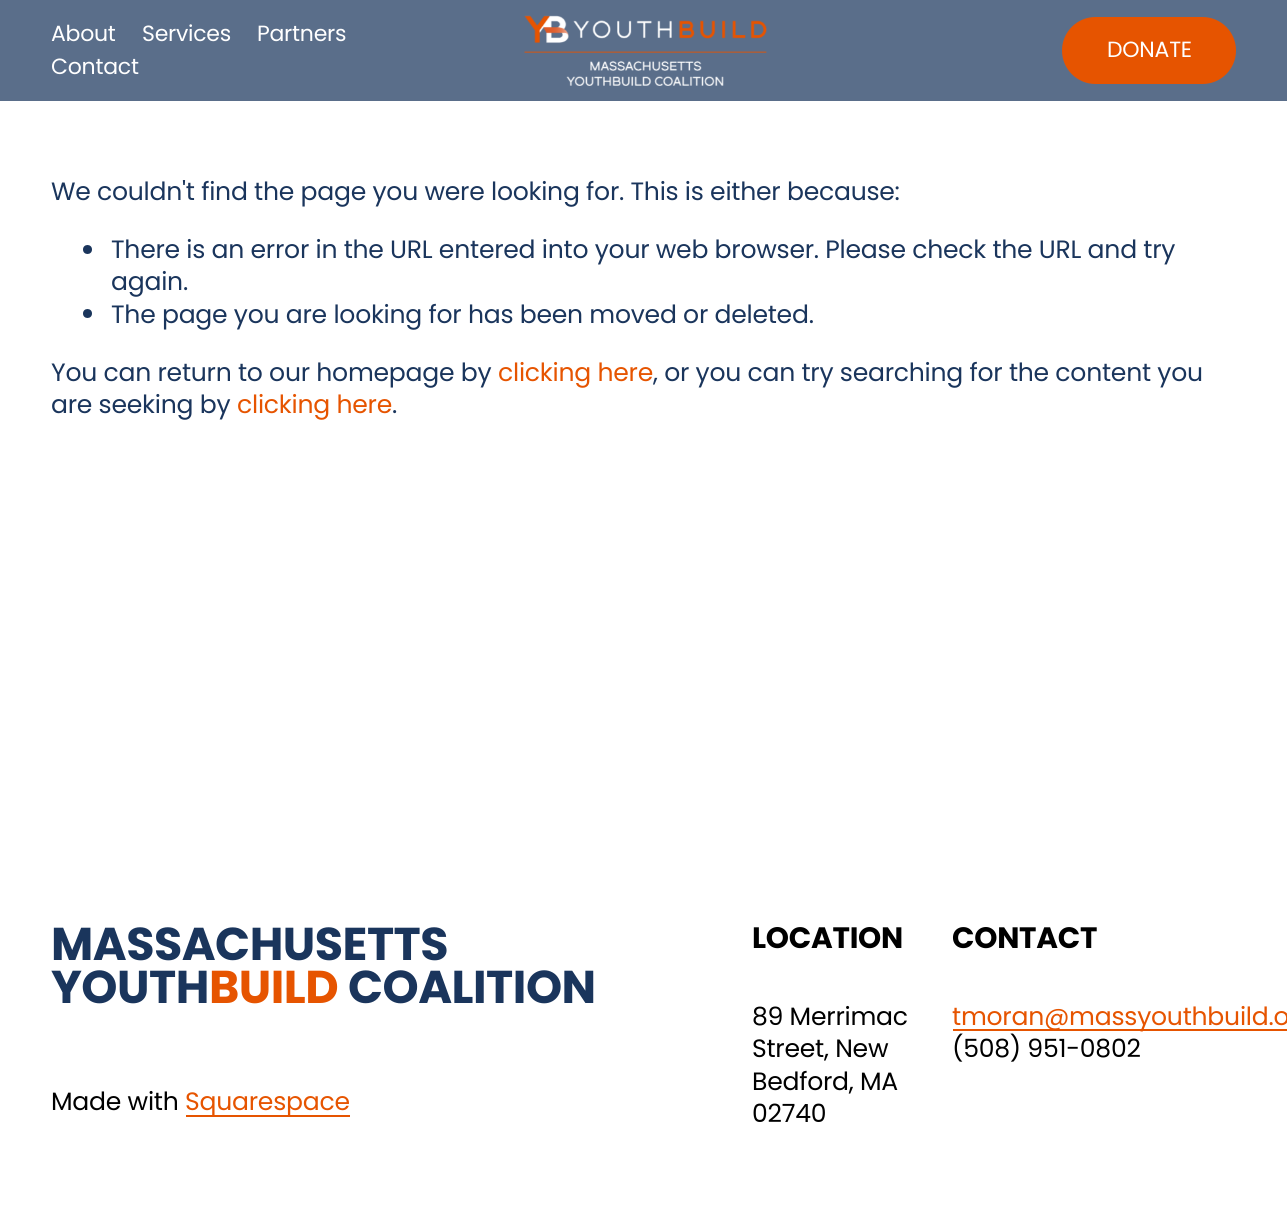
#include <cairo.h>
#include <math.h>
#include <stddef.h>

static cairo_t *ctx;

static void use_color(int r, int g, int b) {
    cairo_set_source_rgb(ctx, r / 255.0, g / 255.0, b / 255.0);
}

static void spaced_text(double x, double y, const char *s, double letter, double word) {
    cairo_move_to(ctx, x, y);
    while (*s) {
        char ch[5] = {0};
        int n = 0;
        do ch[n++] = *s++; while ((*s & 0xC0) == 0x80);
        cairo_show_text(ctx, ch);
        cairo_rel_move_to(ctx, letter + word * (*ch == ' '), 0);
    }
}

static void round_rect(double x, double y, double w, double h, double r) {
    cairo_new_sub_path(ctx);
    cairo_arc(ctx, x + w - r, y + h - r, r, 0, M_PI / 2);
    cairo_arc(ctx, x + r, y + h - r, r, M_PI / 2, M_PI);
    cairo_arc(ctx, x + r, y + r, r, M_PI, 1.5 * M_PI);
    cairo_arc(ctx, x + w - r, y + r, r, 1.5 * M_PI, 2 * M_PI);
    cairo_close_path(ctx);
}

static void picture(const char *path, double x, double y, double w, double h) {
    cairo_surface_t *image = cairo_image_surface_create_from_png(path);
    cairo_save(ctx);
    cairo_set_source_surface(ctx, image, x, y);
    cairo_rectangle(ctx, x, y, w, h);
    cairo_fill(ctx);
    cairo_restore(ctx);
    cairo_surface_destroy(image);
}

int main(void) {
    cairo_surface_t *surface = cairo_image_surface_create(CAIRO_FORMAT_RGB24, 1287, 1214);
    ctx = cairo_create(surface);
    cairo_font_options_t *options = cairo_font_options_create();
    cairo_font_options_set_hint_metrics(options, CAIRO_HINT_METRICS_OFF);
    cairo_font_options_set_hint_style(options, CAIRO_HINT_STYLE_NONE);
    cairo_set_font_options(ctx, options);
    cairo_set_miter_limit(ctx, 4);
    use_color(255, 255, 255);
    cairo_paint(ctx);
    use_color(90, 110, 138);
    cairo_rectangle(ctx, 0, 0, 1287, 101);
    cairo_fill(ctx);
    cairo_select_font_face(ctx, "Poppins", CAIRO_FONT_SLANT_NORMAL, CAIRO_FONT_WEIGHT_NORMAL);
    cairo_set_font_size(ctx, 22);
    use_color(255, 255, 255);
    spaced_text(51, 41, "About", -0.25, 0);
    spaced_text(142, 41, "Services", -0.25, 0);
    spaced_text(257, 41, "Partners", -0.25, 0);
    spaced_text(51, 74, "Contact", -0.25, 0);
    picture("img1.png", 524, 15, 243, 71);
    use_color(230, 84, 0);
    round_rect(1062, 17, 174, 67, 33.5);
    cairo_fill(ctx);
    use_color(255, 255, 255);
    spaced_text(1107, 57, "DONATE", -0.25, 0);
    cairo_set_font_size(ctx, 25.1);
    use_color(26, 53, 92);
    spaced_text(51, 200, "We couldn't find the page you were looking for. This is either because:", -0.25, 0);
    cairo_new_path(ctx);
    cairo_arc(ctx, 87.5, 249.5, 4.5, 0, 2 * M_PI);
    cairo_fill(ctx);
    spaced_text(111, 258, "There is an error in the URL entered into your web browser. Please check the URL and try", -0.25, 0);
    spaced_text(111, 290, "again.", -0.25, 0);
    cairo_new_path(ctx);
    cairo_arc(ctx, 87.5, 313.5, 4.5, 0, 2 * M_PI);
    cairo_fill(ctx);
    spaced_text(111, 323, "The page you are looking for has been moved or deleted.", -0.25, 0);
    spaced_text(51, 381, "You can return to our homepage by", -0.25, 0);
    use_color(230, 84, 0);
    spaced_text(498, 381, "clicking here", -0.25, 0);
    use_color(26, 53, 92);
    spaced_text(653, 381, ", or you can try searching for the content you", -0.25, 0);
    spaced_text(51, 413, "are seeking by", -0.25, 0);
    use_color(230, 84, 0);
    spaced_text(237, 413, "clicking here", -0.25, 0);
    use_color(26, 53, 92);
    spaced_text(392, 413, ".", -0.25, 0);
    cairo_select_font_face(ctx, "Poppins", CAIRO_FONT_SLANT_NORMAL, CAIRO_FONT_WEIGHT_BOLD);
    cairo_set_font_size(ctx, 46);
    spaced_text(51, 960, "MASSACHUSETTS", -0.5, 0);
    spaced_text(51, 1003, "YOUTH", -0.5, 0);
    use_color(230, 84, 0);
    spaced_text(209, 1003, "BUILD", -0.5, 0);
    use_color(26, 53, 92);
    spaced_text(348, 1003, "COALITION", -0.5, 0);
    cairo_set_font_size(ctx, 29.5);
    use_color(0, 0, 0);
    spaced_text(752, 948, "LOCATION", -0.25, 0);
    cairo_select_font_face(ctx, "Poppins", CAIRO_FONT_SLANT_NORMAL, CAIRO_FONT_WEIGHT_NORMAL);
    cairo_set_font_size(ctx, 25.1);
    spaced_text(752, 1025, "89 Merrimac", -0.25, 0);
    spaced_text(752, 1057, "Street, New", -0.25, 0);
    spaced_text(752, 1090, "Bedford, MA", -0.25, 0);
    spaced_text(752, 1122, "02740", -0.25, 0);
    cairo_select_font_face(ctx, "Poppins", CAIRO_FONT_SLANT_NORMAL, CAIRO_FONT_WEIGHT_BOLD);
    cairo_set_font_size(ctx, 29.5);
    spaced_text(952, 948, "CONTACT", -0.25, 0);
    use_color(230, 84, 0);
    cairo_rectangle(ctx, 953, 1029, 334, 2);
    cairo_fill(ctx);
    cairo_select_font_face(ctx, "Poppins", CAIRO_FONT_SLANT_NORMAL, CAIRO_FONT_WEIGHT_NORMAL);
    cairo_set_font_size(ctx, 25.1);
    spaced_text(952, 1025, "tmoran@massyouthbuild.o", -0.25, 0);
    use_color(0, 0, 0);
    spaced_text(952, 1057, "(508) 951-0802", -0.25, 0);
    spaced_text(51, 1110, "Made with", -0.25, 0);
    use_color(230, 84, 0);
    cairo_rectangle(ctx, 186, 1115, 164, 2);
    cairo_fill(ctx);
    spaced_text(185, 1110, "Squarespace", -0.25, 0);
    cairo_surface_write_to_png(surface, "result.png");
    cairo_font_options_destroy(options);
    cairo_destroy(ctx);
    cairo_surface_destroy(surface);
    return 0;
}
